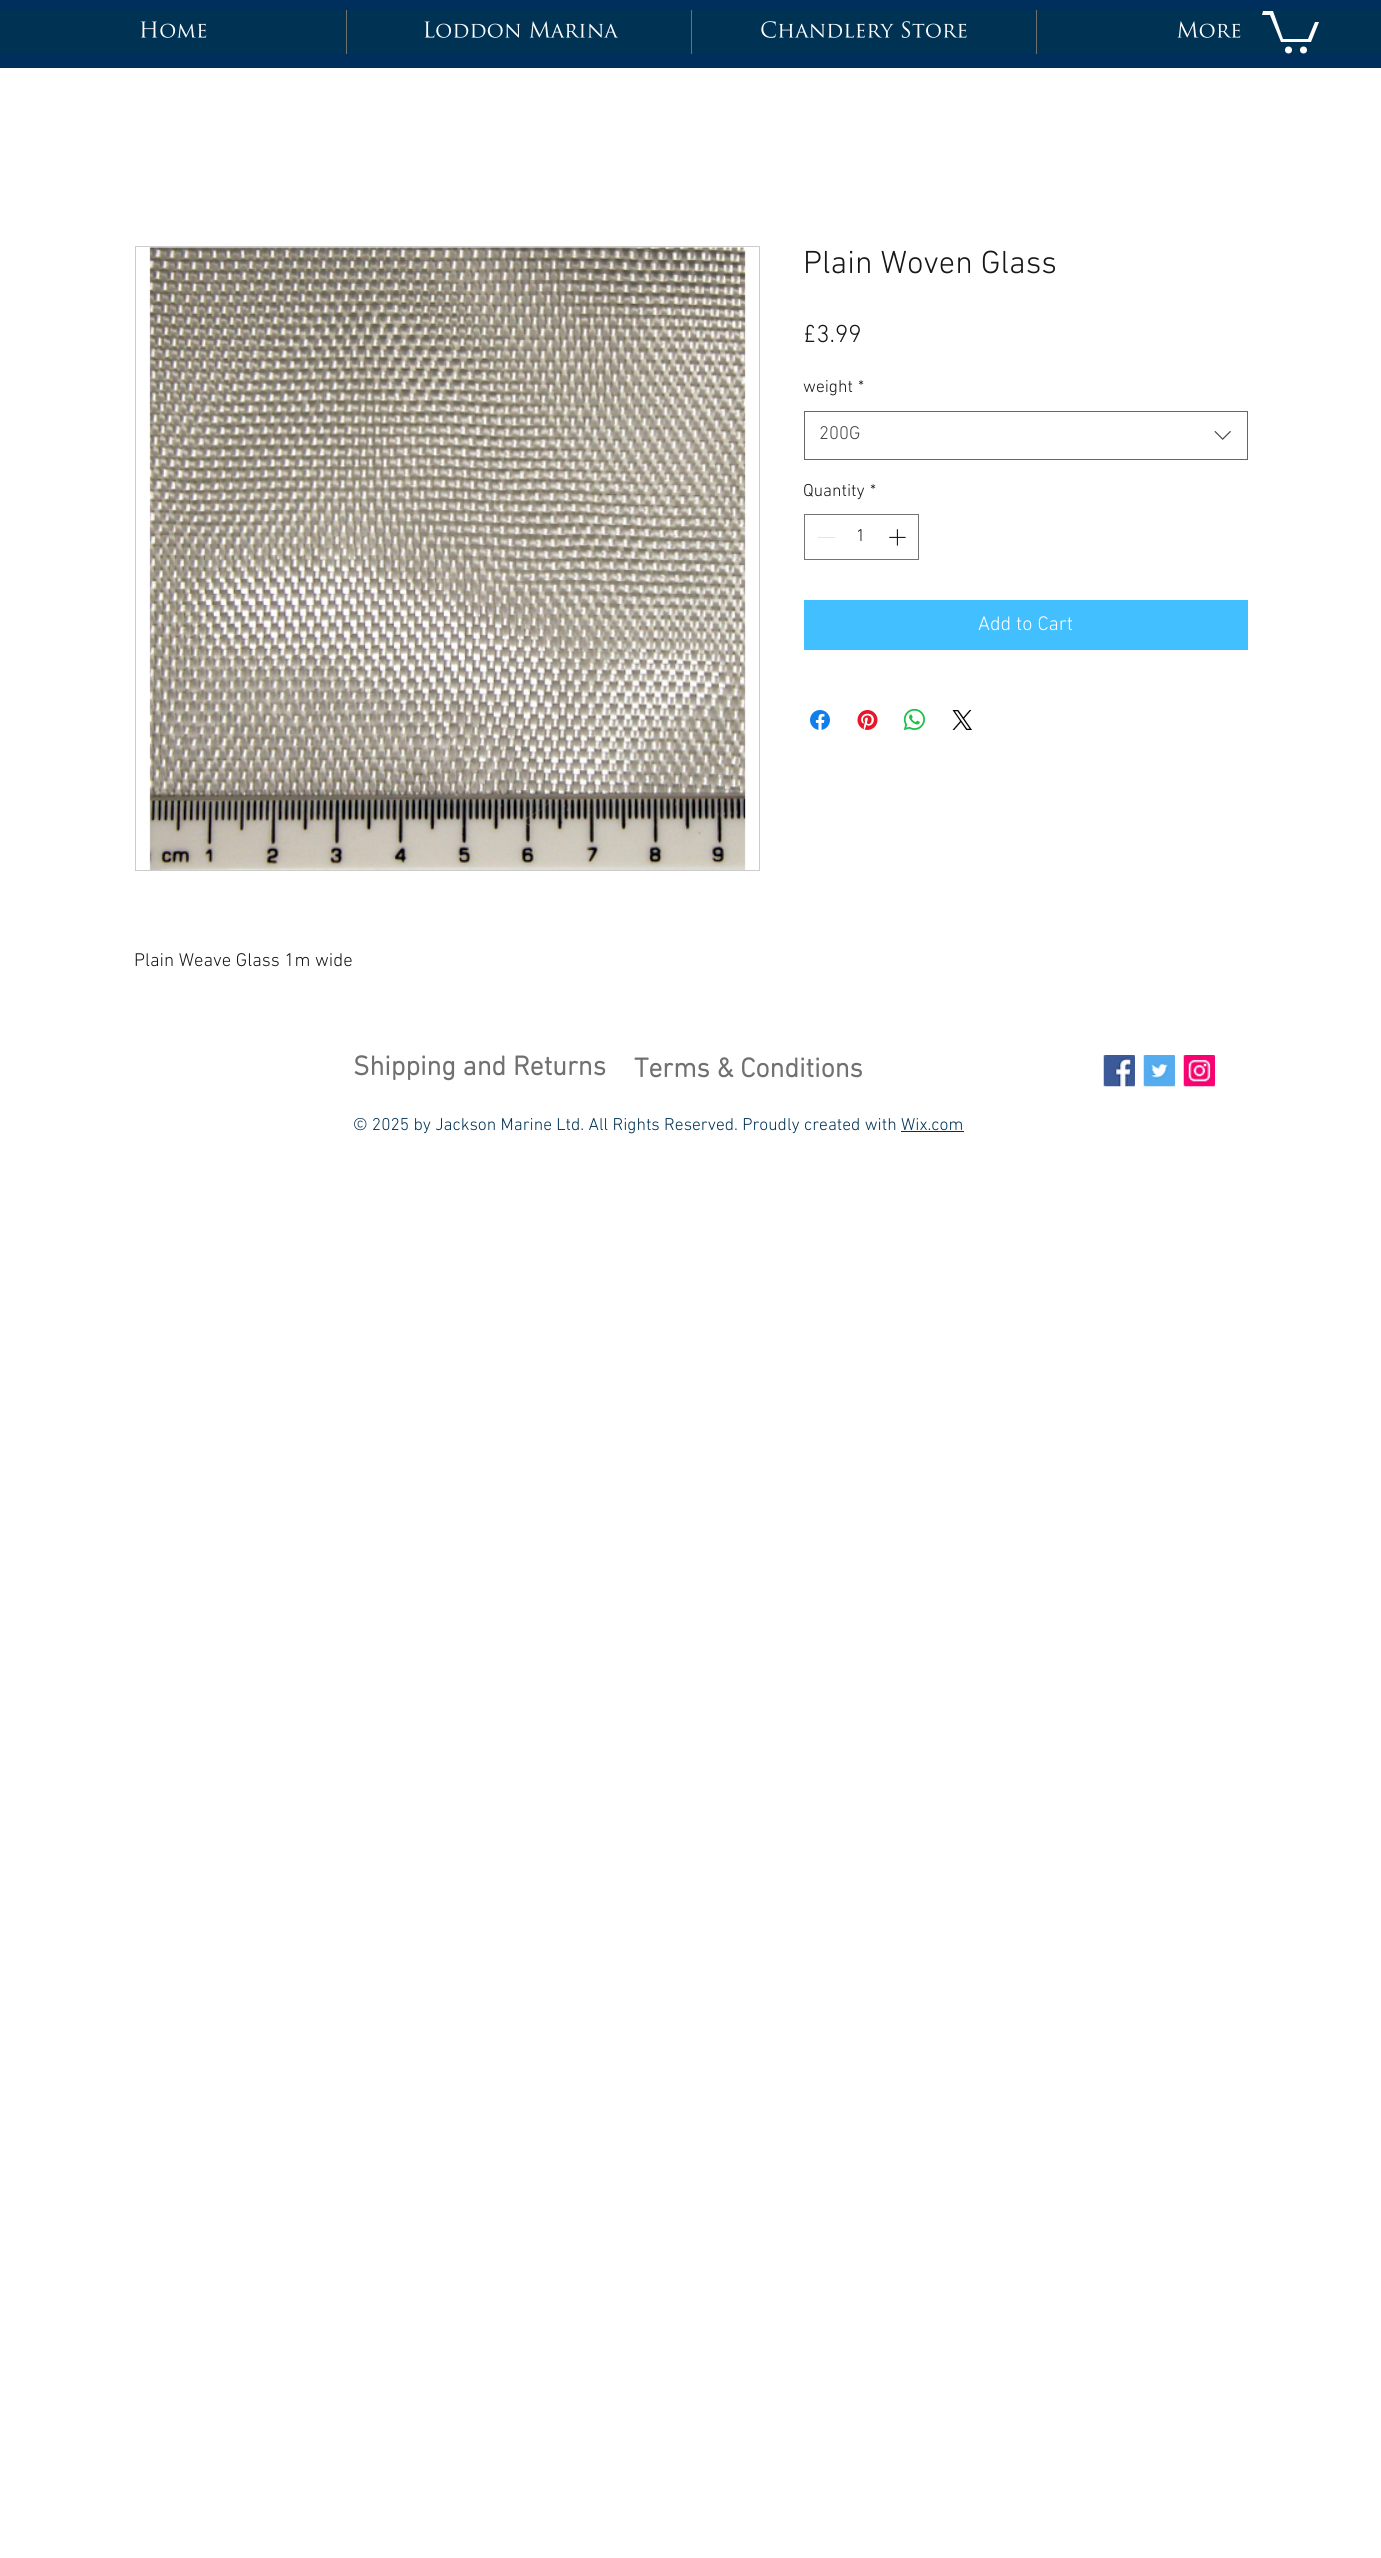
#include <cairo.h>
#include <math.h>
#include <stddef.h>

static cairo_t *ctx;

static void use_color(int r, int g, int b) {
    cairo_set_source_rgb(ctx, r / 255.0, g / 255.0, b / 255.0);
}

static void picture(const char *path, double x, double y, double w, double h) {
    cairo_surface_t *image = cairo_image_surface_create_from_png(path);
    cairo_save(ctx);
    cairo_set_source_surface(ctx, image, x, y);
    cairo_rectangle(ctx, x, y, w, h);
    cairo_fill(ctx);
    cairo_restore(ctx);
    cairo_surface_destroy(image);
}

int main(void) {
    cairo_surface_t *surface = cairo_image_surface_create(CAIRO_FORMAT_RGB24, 1381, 2558);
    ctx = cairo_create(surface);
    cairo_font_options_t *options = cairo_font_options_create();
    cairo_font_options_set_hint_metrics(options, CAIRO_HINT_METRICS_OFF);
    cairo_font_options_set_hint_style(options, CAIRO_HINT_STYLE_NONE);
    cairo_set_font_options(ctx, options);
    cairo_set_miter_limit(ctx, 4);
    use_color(255, 255, 255);
    cairo_paint(ctx);
    use_color(0, 46, 93);
    cairo_rectangle(ctx, 0, 0, 1381, 68);
    cairo_fill(ctx);
    use_color(0, 50, 84);
    cairo_rectangle(ctx, 0, 10, 1381, 44);
    cairo_fill(ctx);
    picture("img1.png", 140, 21, 67, 17);
    use_color(112, 112, 112);
    cairo_rectangle(ctx, 346, 10, 1, 44);
    cairo_fill(ctx);
    picture("img2.png", 424, 21, 195, 17);
    cairo_rectangle(ctx, 691, 10, 1, 44);
    cairo_fill(ctx);
    picture("img3.png", 761, 21, 206, 17);
    cairo_rectangle(ctx, 1036, 10, 1, 44);
    cairo_fill(ctx);
    picture("img4.png", 1177, 21, 64, 17);
    use_color(255, 255, 255);
    cairo_new_path(ctx);
    cairo_move_to(ctx, 1319, 22);
    cairo_line_to(ctx, 1311, 42);
    cairo_line_to(ctx, 1281, 42);
    cairo_line_to(ctx, 1270, 15);
    cairo_line_to(ctx, 1262, 15);
    cairo_line_to(ctx, 1263, 11);
    cairo_line_to(ctx, 1273, 11);
    cairo_line_to(ctx, 1283, 39);
    cairo_line_to(ctx, 1308, 39);
    cairo_line_to(ctx, 1315, 22);
    cairo_fill(ctx);
    cairo_arc(ctx, 1303.5, 50, 3.5, 0, 2 * M_PI);
    cairo_fill(ctx);
    cairo_arc(ctx, 1288.5, 50, 3.5, 0, 2 * M_PI);
    cairo_fill(ctx);
    cairo_select_font_face(ctx, "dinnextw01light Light", CAIRO_FONT_SLANT_NORMAL, CAIRO_FONT_WEIGHT_NORMAL);
    cairo_set_font_size(ctx, 32.5);
    use_color(23, 23, 23);
    cairo_move_to(ctx, 803, 273);
    cairo_show_text(ctx, "Plain Woven Glass");
    cairo_set_font_size(ctx, 25);
    cairo_move_to(ctx, 803, 342);
    cairo_show_text(ctx, "£3.99");
    cairo_set_font_size(ctx, 17.5);
    cairo_move_to(ctx, 803, 392);
    cairo_show_text(ctx, "weight");
    cairo_move_to(ctx, 858, 392);
    cairo_show_text(ctx, "*");
    cairo_rectangle(ctx, 804.5, 411.5, 443, 48);
    use_color(102, 102, 102);
    cairo_set_line_width(ctx, 1);
    cairo_stroke(ctx);
    cairo_set_font_size(ctx, 18.75);
    use_color(68, 68, 68);
    cairo_move_to(ctx, 819, 439);
    cairo_show_text(ctx, "200G");
    picture("img5.png", 1214, 430, 17, 10);
    cairo_set_font_size(ctx, 17.5);
    use_color(23, 23, 23);
    cairo_move_to(ctx, 803, 496);
    cairo_show_text(ctx, "Quantity");
    cairo_move_to(ctx, 870, 496);
    cairo_show_text(ctx, "*");
    cairo_rectangle(ctx, 804.5, 514.5, 114, 45);
    use_color(116, 116, 116);
    cairo_stroke(ctx);
    use_color(227, 227, 227);
    cairo_rectangle(ctx, 818, 537, 17, 1);
    cairo_fill(ctx);
    use_color(23, 23, 23);
    cairo_move_to(ctx, 856, 541);
    cairo_show_text(ctx, "1");
    picture("img6.png", 889, 529, 17, 17);
    use_color(65, 191, 255);
    cairo_rectangle(ctx, 804, 600, 444, 50);
    cairo_fill(ctx);
    cairo_set_font_size(ctx, 20);
    use_color(255, 255, 255);
    cairo_move_to(ctx, 978, 630);
    cairo_show_text(ctx, "Add to Cart");
    picture("img7.png", 810, 710, 20, 20);
    picture("img8.png", 857, 710, 21, 20);
    picture("img9.png", 903, 708, 22, 22);
    picture("img10.png", 952, 710, 20, 20);
    cairo_rectangle(ctx, 135.5, 246.5, 624, 624);
    use_color(204, 204, 204);
    cairo_stroke(ctx);
    picture("img11.png", 149, 247, 597, 623);
    cairo_set_font_size(ctx, 18.75);
    use_color(23, 23, 23);
    cairo_move_to(ctx, 134, 966);
    cairo_show_text(ctx, "Plain Weave Glass 1m wide");
    cairo_select_font_face(ctx, "dinnextw01light", CAIRO_FONT_SLANT_NORMAL, CAIRO_FONT_WEIGHT_BOLD);
    cairo_set_font_size(ctx, 27.5);
    use_color(112, 112, 112);
    cairo_move_to(ctx, 353, 1075);
    cairo_show_text(ctx, "Shipping and Returns");
    cairo_move_to(ctx, 634, 1077);
    cairo_show_text(ctx, "Terms & Conditions");
    picture("img12.png", 1103, 1055, 32, 32);
    picture("img13.png", 1143, 1055, 32, 32);
    picture("img14.png", 1183, 1055, 32, 32);
    cairo_select_font_face(ctx, "dinnextw01light Light", CAIRO_FONT_SLANT_NORMAL, CAIRO_FONT_WEIGHT_NORMAL);
    cairo_set_font_size(ctx, 17.5);
    use_color(0, 50, 84);
    cairo_move_to(ctx, 353, 1130);
    cairo_show_text(ctx, "© 2025 by Jackson Marine Ltd. All Rights Reserved. Proudly created with Wix.com");
    cairo_rectangle(ctx, 901, 1131, 63, 1);
    cairo_fill(ctx);
    cairo_surface_write_to_png(surface, "result.png");
    cairo_font_options_destroy(options);
    cairo_destroy(ctx);
    cairo_surface_destroy(surface);
    return 0;
}
